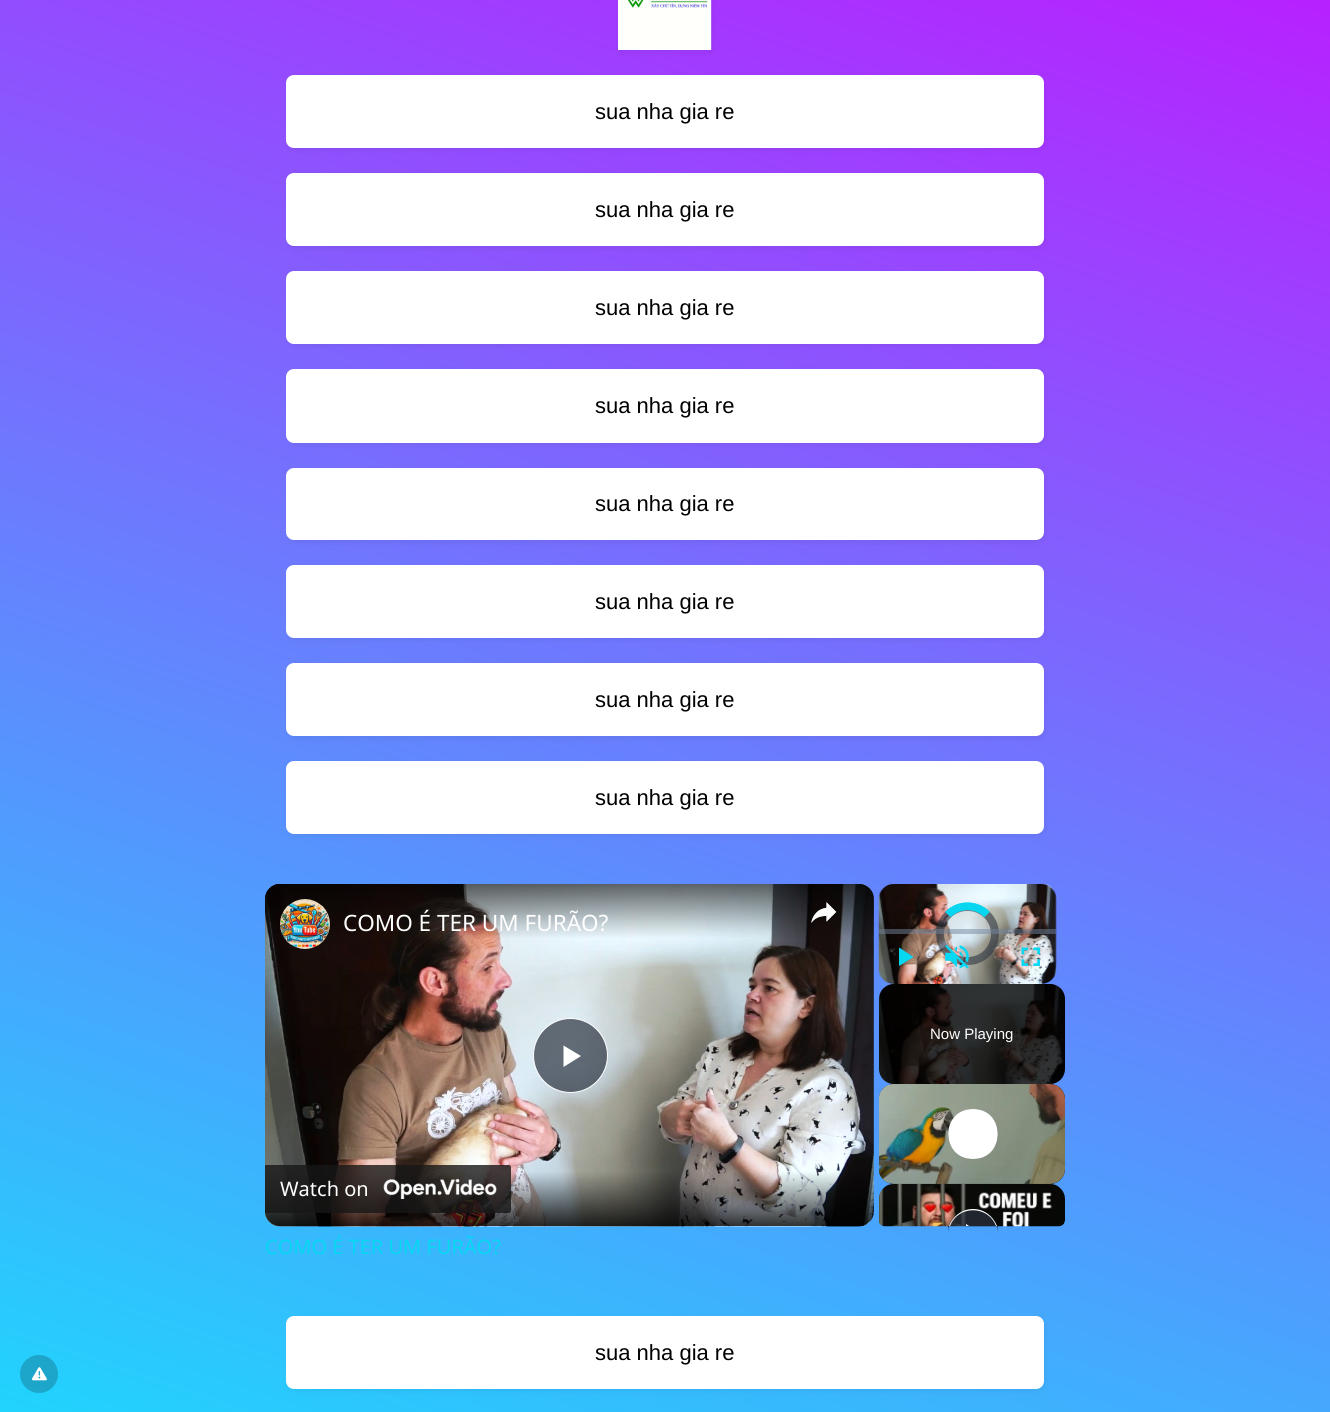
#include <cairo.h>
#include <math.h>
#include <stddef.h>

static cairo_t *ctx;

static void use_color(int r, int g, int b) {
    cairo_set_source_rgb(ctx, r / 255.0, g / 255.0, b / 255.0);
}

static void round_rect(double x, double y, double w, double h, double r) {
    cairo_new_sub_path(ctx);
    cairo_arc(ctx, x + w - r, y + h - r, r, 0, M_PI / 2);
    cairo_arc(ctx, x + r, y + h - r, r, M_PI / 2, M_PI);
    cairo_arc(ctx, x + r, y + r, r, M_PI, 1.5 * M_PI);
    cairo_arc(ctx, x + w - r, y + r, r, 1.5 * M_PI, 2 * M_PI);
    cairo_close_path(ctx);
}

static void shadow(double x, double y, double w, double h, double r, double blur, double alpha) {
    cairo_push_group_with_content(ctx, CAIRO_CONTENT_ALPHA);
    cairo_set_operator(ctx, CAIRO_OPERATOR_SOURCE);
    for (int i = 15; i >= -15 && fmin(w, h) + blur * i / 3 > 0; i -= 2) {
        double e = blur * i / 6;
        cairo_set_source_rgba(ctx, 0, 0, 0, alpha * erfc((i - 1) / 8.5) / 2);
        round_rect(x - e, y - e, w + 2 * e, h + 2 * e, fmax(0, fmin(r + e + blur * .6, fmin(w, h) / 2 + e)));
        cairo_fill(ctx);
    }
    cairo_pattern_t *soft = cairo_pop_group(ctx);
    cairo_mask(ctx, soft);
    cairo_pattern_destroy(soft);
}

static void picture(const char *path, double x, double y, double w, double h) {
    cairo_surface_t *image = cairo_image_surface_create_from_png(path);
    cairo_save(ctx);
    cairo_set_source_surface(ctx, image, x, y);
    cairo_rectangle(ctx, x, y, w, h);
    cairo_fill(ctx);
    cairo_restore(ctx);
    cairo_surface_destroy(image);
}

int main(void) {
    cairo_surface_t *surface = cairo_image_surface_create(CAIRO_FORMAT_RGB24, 1330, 1412);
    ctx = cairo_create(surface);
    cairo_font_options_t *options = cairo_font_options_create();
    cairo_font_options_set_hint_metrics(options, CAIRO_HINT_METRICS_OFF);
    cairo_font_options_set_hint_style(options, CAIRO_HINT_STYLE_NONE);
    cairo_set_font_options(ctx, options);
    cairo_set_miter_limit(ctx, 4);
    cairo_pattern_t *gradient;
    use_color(255, 255, 255);
    cairo_paint(ctx);
    gradient = cairo_pattern_create_linear(377, 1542, 953, -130);
    cairo_pattern_add_color_stop_rgba(gradient, 0, 0.129, 0.831, 0.992, 1);
    cairo_pattern_add_color_stop_rgba(gradient, 1, 0.718, 0.129, 1, 1);
    cairo_set_source(ctx, gradient);
    cairo_pattern_destroy(gradient);
    cairo_rectangle(ctx, 0, 0, 1330, 1412);
    cairo_fill(ctx);
    use_color(0, 0, 0);
    shadow(619, -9, 94, 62, 0, 3, 0.06);
    picture("img1.png", 618, 0, 94, 50);
    shadow(288, 78, 757, 72, 8, 3, 0.06);
    use_color(255, 255, 255);
    round_rect(286, 75, 758, 73, 8);
    cairo_fill(ctx);
    cairo_select_font_face(ctx, "Liberation Sans", CAIRO_FONT_SLANT_NORMAL, CAIRO_FONT_WEIGHT_NORMAL);
    cairo_set_font_size(ctx, 22);
    use_color(0, 0, 0);
    cairo_move_to(ctx, 595, 119);
    cairo_show_text(ctx, "sua nha gia re");
    use_color(0, 0, 0);
    shadow(288, 175, 757, 74, 8, 3, 0.06);
    use_color(255, 255, 255);
    round_rect(286, 173, 758, 73, 8);
    cairo_fill(ctx);
    use_color(0, 0, 0);
    cairo_move_to(ctx, 595, 217);
    cairo_show_text(ctx, "sua nha gia re");
    use_color(0, 0, 0);
    shadow(288, 274, 757, 72, 8, 3, 0.06);
    use_color(255, 255, 255);
    round_rect(286, 271, 758, 73, 8);
    cairo_fill(ctx);
    use_color(0, 0, 0);
    cairo_move_to(ctx, 595, 315);
    cairo_show_text(ctx, "sua nha gia re");
    use_color(0, 0, 0);
    shadow(288, 371, 757, 74, 8, 3, 0.06);
    use_color(255, 255, 255);
    round_rect(286, 369, 758, 74, 8);
    cairo_fill(ctx);
    use_color(0, 0, 0);
    cairo_move_to(ctx, 595, 413);
    cairo_show_text(ctx, "sua nha gia re");
    use_color(0, 0, 0);
    shadow(288, 470, 757, 73, 8, 3, 0.06);
    use_color(255, 255, 255);
    round_rect(286, 468, 758, 72, 8);
    cairo_fill(ctx);
    use_color(0, 0, 0);
    cairo_move_to(ctx, 595, 511);
    cairo_show_text(ctx, "sua nha gia re");
    use_color(0, 0, 0);
    shadow(288, 568, 757, 72, 8, 3, 0.06);
    use_color(255, 255, 255);
    round_rect(286, 565, 758, 73, 8);
    cairo_fill(ctx);
    use_color(0, 0, 0);
    cairo_move_to(ctx, 595, 609);
    cairo_show_text(ctx, "sua nha gia re");
    use_color(0, 0, 0);
    shadow(288, 665, 757, 74, 8, 3, 0.06);
    use_color(255, 255, 255);
    round_rect(286, 663, 758, 73, 8);
    cairo_fill(ctx);
    use_color(0, 0, 0);
    cairo_move_to(ctx, 595, 707);
    cairo_show_text(ctx, "sua nha gia re");
    use_color(0, 0, 0);
    shadow(288, 764, 757, 72, 8, 3, 0.06);
    use_color(255, 255, 255);
    round_rect(286, 761, 758, 73, 8);
    cairo_fill(ctx);
    use_color(0, 0, 0);
    cairo_move_to(ctx, 595, 805);
    cairo_show_text(ctx, "sua nha gia re");
    use_color(161, 183, 255);
    cairo_new_path(ctx);
    cairo_arc(ctx, 861, 894, 10, 0, 2 * M_PI);
    cairo_fill(ctx);
    picture("img2.png", 265, 884, 609, 343);
    picture("img3.png", 265, 884, 609, 343);
    cairo_set_source_rgba(ctx, 0.169, 0.2, 0.247, 0.7);
    cairo_arc(ctx, 570.5, 1055.5, 37, 0, 2 * M_PI);
    cairo_fill_preserve(ctx);
    use_color(255, 255, 255);
    cairo_set_line_width(ctx, 1);
    cairo_stroke(ctx);
    cairo_new_path(ctx);
    cairo_move_to(ctx, 563.5, 1045.5);
    cairo_line_to(ctx, 563.5, 1067);
    cairo_line_to(ctx, 581, 1056);
    cairo_close_path(ctx);
    cairo_fill(ctx);
    gradient = cairo_pattern_create_linear(569, 884, 569, 1226);
    cairo_pattern_add_color_stop_rgba(gradient, 0, 0, 0, 0, 0.6);
    cairo_pattern_add_color_stop_rgba(gradient, 0.16, 0, 0, 0, 0);
    cairo_pattern_add_color_stop_rgba(gradient, 0.84, 0, 0, 0, 0);
    cairo_pattern_add_color_stop_rgba(gradient, 1, 0, 0, 0, 0.8);
    cairo_set_source(ctx, gradient);
    cairo_pattern_destroy(gradient);
    round_rect(265, 884, 609, 342, 15);
    cairo_fill(ctx);
    picture("img4.png", 280, 899, 50, 50);
    cairo_select_font_face(ctx, "Noto Sans", CAIRO_FONT_SLANT_NORMAL, CAIRO_FONT_WEIGHT_NORMAL);
    cairo_set_font_size(ctx, 22.5);
    use_color(255, 255, 255);
    cairo_move_to(ctx, 343, 931);
    cairo_show_text(ctx, "COMO É TER UM FURÃO?");
    picture("img5.png", 811, 902, 26, 21);
    cairo_set_source_rgba(ctx, 0.09, 0.09, 0.09, 0.8);
    cairo_new_path(ctx);
    cairo_move_to(ctx, 265, 1165);
    cairo_line_to(ctx, 508.5, 1165);
    cairo_curve_to(ctx, 510, 1165, 511, 1166, 511, 1167.5);
    cairo_line_to(ctx, 511, 1210.5);
    cairo_curve_to(ctx, 511, 1212, 510, 1213, 508.5, 1213);
    cairo_line_to(ctx, 265, 1213);
    cairo_close_path(ctx);
    cairo_fill(ctx);
    cairo_set_font_size(ctx, 20);
    use_color(255, 255, 255);
    cairo_move_to(ctx, 280, 1196);
    cairo_show_text(ctx, "Watch on");
    picture("img6.png", 383, 1179, 114, 20);
    use_color(164, 179, 255);
    cairo_arc(ctx, 1044, 894, 10, 0, 2 * M_PI);
    cairo_fill(ctx);
    picture("img7.png", 878, 884, 179, 100);
    round_rect(940, 907, 55, 54, 27);
    cairo_set_source_rgba(ctx, 0.169, 0.2, 0.247, 0.59);
    cairo_set_line_width(ctx, 8);
    cairo_stroke(ctx);
    cairo_new_path(ctx);
    cairo_move_to(ctx, 948, 914.5);
    cairo_curve_to(ctx, 958.5, 903.5, 976.5, 903.5, 987, 914.5);
    cairo_set_source_rgba(ctx, 0.02, 0.847, 0.953, 0.85);
    cairo_set_line_width(ctx, 7.5);
    cairo_stroke(ctx);
    cairo_new_path(ctx);
    cairo_move_to(ctx, 948, 914.5);
    cairo_curve_to(ctx, 958.5, 903.5, 976.5, 903.5, 987, 914.5);
    cairo_stroke(ctx);
    cairo_set_source_rgba(ctx, 0.451, 0.522, 0.624, 0.5);
    cairo_rectangle(ctx, 879, 929, 177, 5);
    cairo_fill(ctx);
    use_color(5, 216, 243);
    cairo_new_path(ctx);
    cairo_move_to(ctx, 899, 947.5);
    cairo_line_to(ctx, 899, 966);
    cairo_line_to(ctx, 913.5, 957);
    cairo_close_path(ctx);
    cairo_fill(ctx);
    picture("img8.png", 945, 945, 24, 24);
    picture("img9.png", 1021, 947, 19, 19);
    use_color(0, 0, 0);
    round_rect(879, 984, 186, 100, 15);
    cairo_fill(ctx);
    picture("img10.png", 879, 984, 186, 100);
    cairo_select_font_face(ctx, "Liberation Sans", CAIRO_FONT_SLANT_NORMAL, CAIRO_FONT_WEIGHT_NORMAL);
    cairo_set_font_size(ctx, 15);
    use_color(255, 255, 255);
    cairo_move_to(ctx, 930, 1039);
    cairo_show_text(ctx, "Now Playing");
    use_color(0, 0, 0);
    round_rect(879, 1084, 186, 100, 15);
    cairo_fill(ctx);
    picture("img11.png", 878, 1084, 187, 100);
    cairo_set_source_rgba(ctx, 0.169, 0.2, 0.247, 0.7);
    cairo_arc(ctx, 973, 1134, 25, 0, 2 * M_PI);
    cairo_fill(ctx);
    use_color(255, 255, 255);
    cairo_new_path(ctx);
    cairo_move_to(ctx, 973, 1109);
    cairo_curve_to(ctx, 940, 1109, 940, 1159, 973, 1159);
    cairo_curve_to(ctx, 1006, 1159, 1006, 1109, 973, 1109);
    cairo_close_path(ctx);
    cairo_fill(ctx);
    picture("img12.png", 879, 1184, 186, 43);
    cairo_set_source_rgba(ctx, 0.169, 0.2, 0.247, 0.7);
    cairo_new_path(ctx);
    cairo_move_to(ctx, 973, 1209);
    cairo_curve_to(ctx, 987, 1209, 998, 1220, 998, 1234);
    cairo_line_to(ctx, 998, 1226);
    cairo_line_to(ctx, 948, 1226);
    cairo_line_to(ctx, 948, 1234);
    cairo_curve_to(ctx, 948, 1220, 959, 1209, 973, 1209);
    cairo_close_path(ctx);
    cairo_fill(ctx);
    use_color(255, 255, 255);
    cairo_new_path(ctx);
    cairo_move_to(ctx, 973, 1209);
    cairo_curve_to(ctx, 984, 1209, 993, 1216, 997, 1226);
    cairo_line_to(ctx, 996, 1226);
    cairo_curve_to(ctx, 988, 1205, 958, 1205, 950, 1226);
    cairo_line_to(ctx, 949, 1226);
    cairo_curve_to(ctx, 953, 1216, 962, 1209, 973, 1209);
    cairo_close_path(ctx);
    cairo_fill(ctx);
    cairo_new_path(ctx);
    cairo_move_to(ctx, 966, 1224);
    cairo_line_to(ctx, 969, 1226);
    cairo_line_to(ctx, 966, 1226);
    cairo_close_path(ctx);
    cairo_fill(ctx);
    cairo_select_font_face(ctx, "Noto Sans", CAIRO_FONT_SLANT_NORMAL, CAIRO_FONT_WEIGHT_NORMAL);
    cairo_set_font_size(ctx, 20);
    use_color(5, 216, 243);
    cairo_move_to(ctx, 265, 1254);
    cairo_show_text(ctx, "COMO É TER UM FURÃO?");
    use_color(0, 0, 0);
    shadow(288, 1319, 757, 72, 8, 3, 0.06);
    use_color(255, 255, 255);
    round_rect(286, 1316, 758, 73, 8);
    cairo_fill(ctx);
    cairo_select_font_face(ctx, "Liberation Sans", CAIRO_FONT_SLANT_NORMAL, CAIRO_FONT_WEIGHT_NORMAL);
    cairo_set_font_size(ctx, 22);
    use_color(0, 0, 0);
    cairo_move_to(ctx, 595, 1360);
    cairo_show_text(ctx, "sua nha gia re");
    cairo_set_source_rgba(ctx, 0, 0, 0, 0.2);
    cairo_new_path(ctx);
    cairo_arc(ctx, 39, 1374, 19, 0, 2 * M_PI);
    cairo_fill(ctx);
    picture("img13.png", 31, 1367, 16, 14);
    cairo_surface_write_to_png(surface, "result.png");
    cairo_font_options_destroy(options);
    cairo_destroy(ctx);
    cairo_surface_destroy(surface);
    return 0;
}
